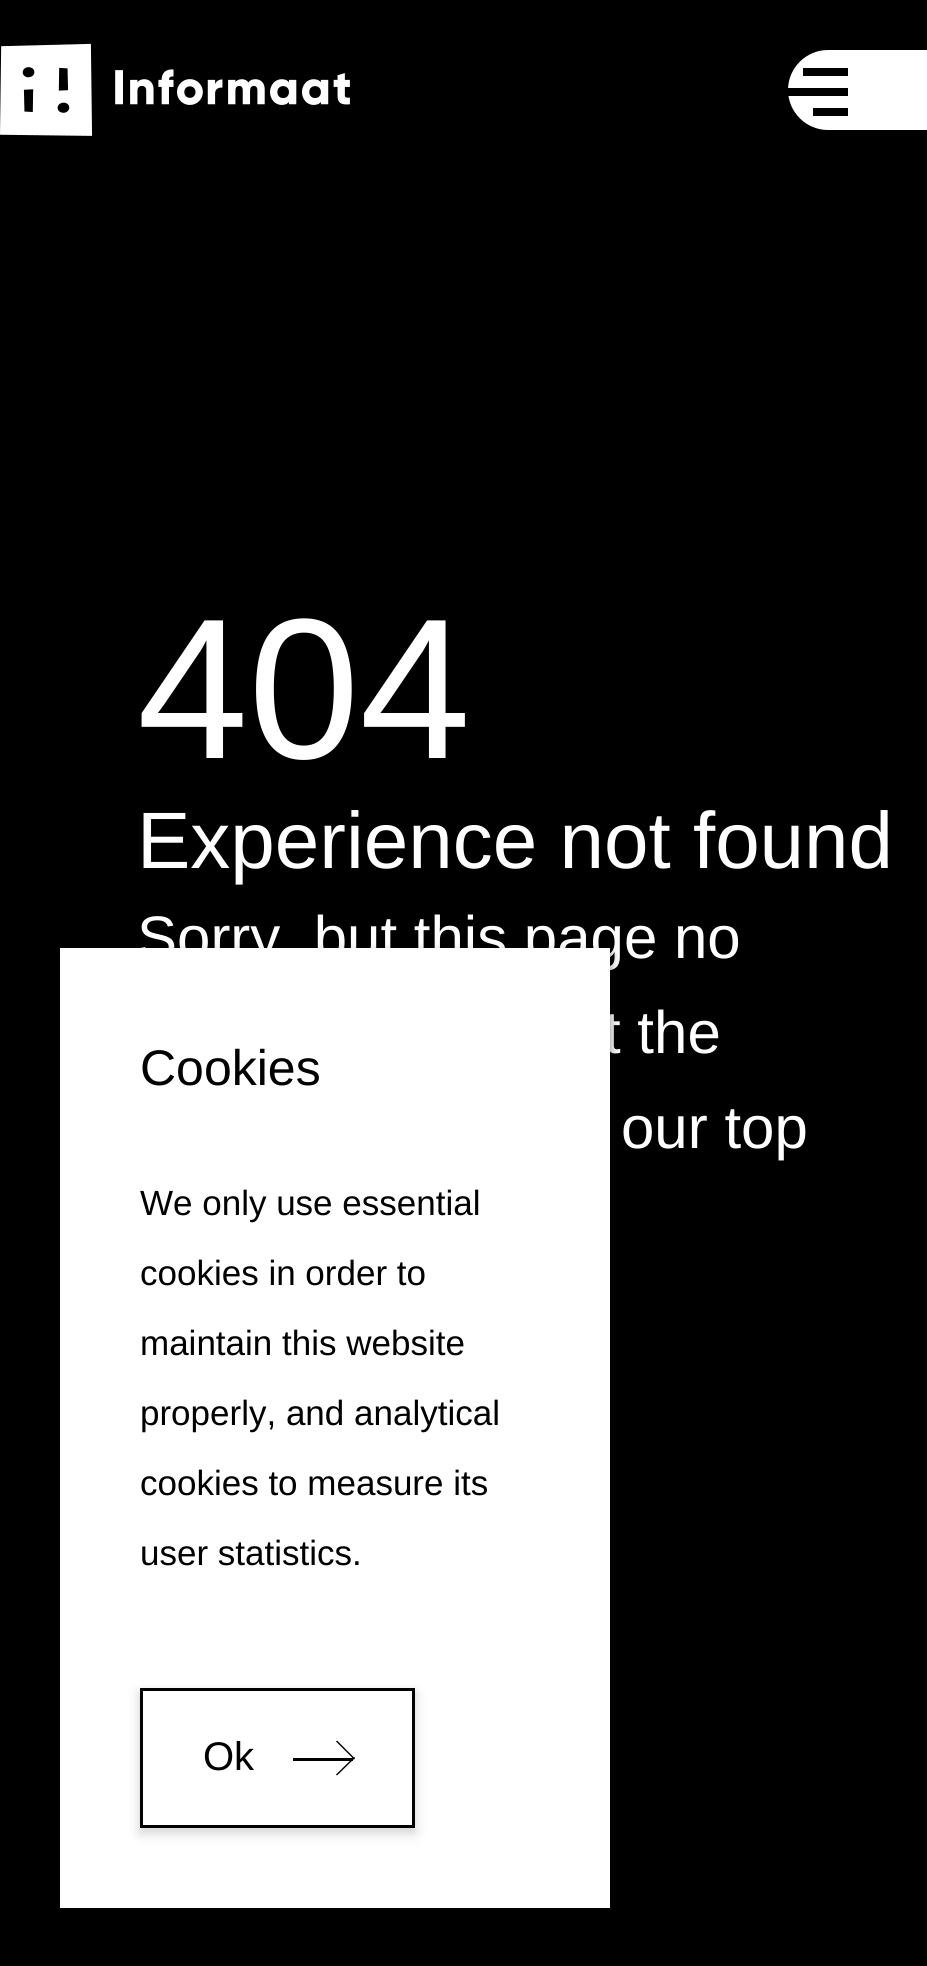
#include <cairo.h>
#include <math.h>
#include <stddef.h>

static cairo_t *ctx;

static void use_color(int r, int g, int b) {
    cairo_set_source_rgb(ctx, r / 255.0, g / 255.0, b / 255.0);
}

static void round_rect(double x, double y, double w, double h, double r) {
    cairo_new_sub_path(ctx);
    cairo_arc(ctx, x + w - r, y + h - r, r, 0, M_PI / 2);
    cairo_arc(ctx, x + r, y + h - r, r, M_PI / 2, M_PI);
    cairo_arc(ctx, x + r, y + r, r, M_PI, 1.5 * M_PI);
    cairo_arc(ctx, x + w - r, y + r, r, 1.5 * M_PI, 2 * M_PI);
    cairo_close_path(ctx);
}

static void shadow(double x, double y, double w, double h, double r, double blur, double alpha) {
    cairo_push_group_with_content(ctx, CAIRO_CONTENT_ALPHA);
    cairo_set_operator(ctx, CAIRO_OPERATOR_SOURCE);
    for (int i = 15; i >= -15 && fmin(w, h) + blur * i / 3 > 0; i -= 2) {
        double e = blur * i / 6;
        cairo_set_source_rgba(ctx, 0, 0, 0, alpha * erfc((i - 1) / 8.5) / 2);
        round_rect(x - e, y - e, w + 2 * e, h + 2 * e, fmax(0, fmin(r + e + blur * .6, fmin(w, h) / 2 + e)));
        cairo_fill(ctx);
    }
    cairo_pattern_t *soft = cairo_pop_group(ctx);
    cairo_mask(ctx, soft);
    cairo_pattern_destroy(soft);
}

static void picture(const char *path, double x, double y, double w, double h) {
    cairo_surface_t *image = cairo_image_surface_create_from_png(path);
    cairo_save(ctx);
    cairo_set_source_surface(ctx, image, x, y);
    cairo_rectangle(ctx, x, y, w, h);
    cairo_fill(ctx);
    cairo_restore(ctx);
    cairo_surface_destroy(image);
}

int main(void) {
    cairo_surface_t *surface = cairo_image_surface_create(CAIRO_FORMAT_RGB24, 927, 1966);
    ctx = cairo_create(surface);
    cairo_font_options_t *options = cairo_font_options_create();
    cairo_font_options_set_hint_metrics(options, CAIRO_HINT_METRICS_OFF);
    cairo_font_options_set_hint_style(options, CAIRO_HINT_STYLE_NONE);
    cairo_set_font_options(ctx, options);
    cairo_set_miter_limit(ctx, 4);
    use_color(0, 0, 0);
    cairo_paint(ctx);
    picture("img1.png", 0, 43, 350, 93);
    use_color(255, 255, 255);
    cairo_new_path(ctx);
    cairo_move_to(ctx, 828, 50);
    cairo_line_to(ctx, 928, 50);
    cairo_line_to(ctx, 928, 130);
    cairo_line_to(ctx, 828, 130);
    cairo_curve_to(ctx, 806, 130, 788, 112, 788, 90);
    cairo_curve_to(ctx, 788, 68, 806, 50, 828, 50);
    cairo_close_path(ctx);
    cairo_fill(ctx);
    use_color(0, 0, 0);
    cairo_rectangle(ctx, 788, 88, 60, 8);
    cairo_fill(ctx);
    cairo_rectangle(ctx, 803, 68, 45, 8);
    cairo_fill(ctx);
    cairo_rectangle(ctx, 813, 108, 35, 8);
    cairo_fill(ctx);
    cairo_select_font_face(ctx, "Liberation Sans", CAIRO_FONT_SLANT_NORMAL, CAIRO_FONT_WEIGHT_NORMAL);
    cairo_set_font_size(ctx, 200);
    use_color(255, 255, 255);
    cairo_move_to(ctx, 137, 758);
    cairo_show_text(ctx, "404");
    cairo_set_font_size(ctx, 80);
    cairo_move_to(ctx, 137, 868);
    cairo_show_text(ctx, "Experience not found");
    cairo_set_font_size(ctx, 60);
    cairo_move_to(ctx, 137, 958);
    cairo_show_text(ctx, "Sorry, but this page no");
    cairo_move_to(ctx, 604, 1053);
    cairo_show_text(ctx, "t the");
    cairo_move_to(ctx, 621, 1148);
    cairo_show_text(ctx, "our top");
    use_color(0, 0, 0);
    shadow(60, 953, 550, 960, 0, 5, 0.5);
    use_color(255, 255, 255);
    cairo_rectangle(ctx, 60, 948, 550, 960);
    cairo_fill(ctx);
    cairo_set_font_size(ctx, 50);
    use_color(0, 0, 0);
    cairo_move_to(ctx, 140, 1085);
    cairo_show_text(ctx, "Cookies");
    cairo_set_font_size(ctx, 35);
    cairo_move_to(ctx, 140, 1215);
    cairo_show_text(ctx, "We only use essential");
    cairo_move_to(ctx, 140, 1285);
    cairo_show_text(ctx, "cookies in order to");
    cairo_move_to(ctx, 140, 1355);
    cairo_show_text(ctx, "maintain this website");
    cairo_move_to(ctx, 140, 1425);
    cairo_show_text(ctx, "properly, and analytical");
    cairo_move_to(ctx, 140, 1495);
    cairo_show_text(ctx, "cookies to measure its");
    cairo_move_to(ctx, 140, 1565);
    cairo_show_text(ctx, "user statistics.");
    use_color(0, 0, 0);
    shadow(140, 1693, 275, 140, 0, 6, 0.18);
    use_color(255, 255, 255);
    cairo_rectangle(ctx, 141.5, 1689.5, 272, 137);
    cairo_fill_preserve(ctx);
    use_color(0, 0, 0);
    cairo_set_line_width(ctx, 3);
    cairo_stroke(ctx);
    cairo_set_font_size(ctx, 40);
    cairo_move_to(ctx, 203, 1770);
    cairo_show_text(ctx, "Ok");
    cairo_rectangle(ctx, 293, 1758, 60, 3);
    cairo_fill(ctx);
    cairo_new_path(ctx);
    cairo_move_to(ctx, 354, 1757);
    cairo_line_to(ctx, 355, 1758);
    cairo_line_to(ctx, 337, 1775.5);
    cairo_line_to(ctx, 336, 1774.5);
    cairo_close_path(ctx);
    cairo_fill(ctx);
    cairo_new_path(ctx);
    cairo_move_to(ctx, 336, 1741.5);
    cairo_line_to(ctx, 337, 1740.5);
    cairo_line_to(ctx, 355, 1758.5);
    cairo_line_to(ctx, 354, 1759.5);
    cairo_close_path(ctx);
    cairo_fill(ctx);
    cairo_surface_write_to_png(surface, "result.png");
    cairo_font_options_destroy(options);
    cairo_destroy(ctx);
    cairo_surface_destroy(surface);
    return 0;
}
